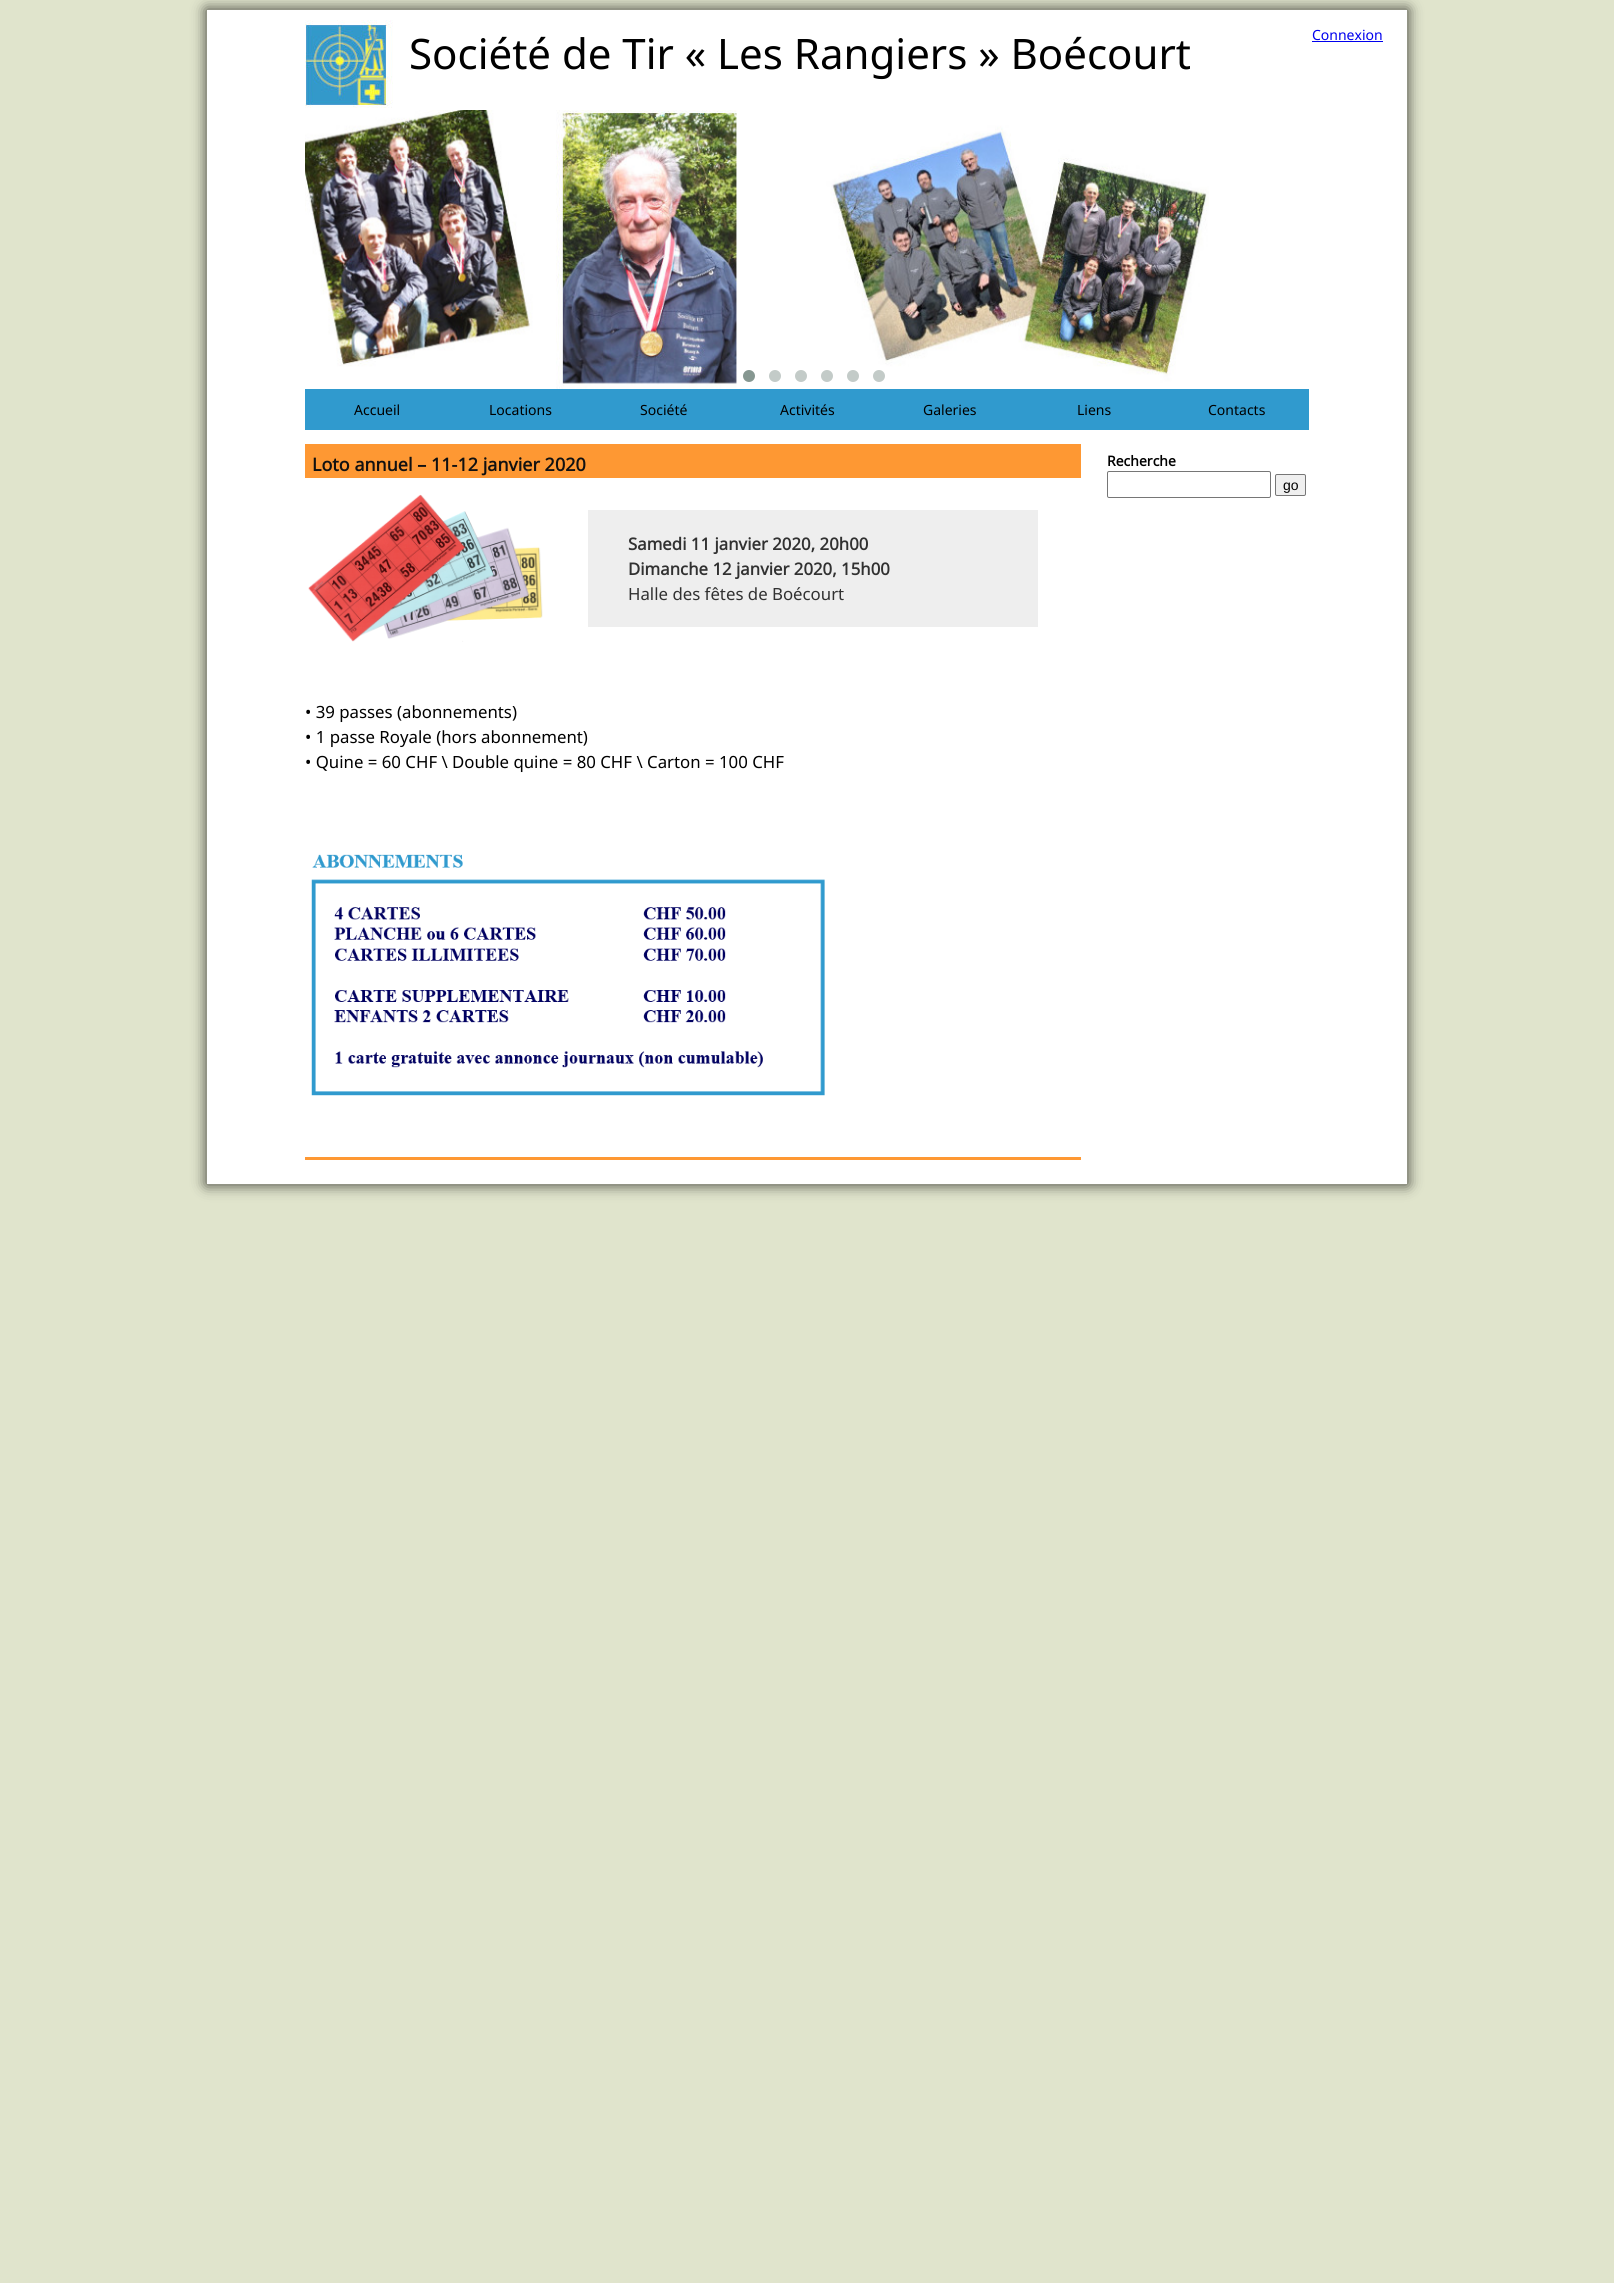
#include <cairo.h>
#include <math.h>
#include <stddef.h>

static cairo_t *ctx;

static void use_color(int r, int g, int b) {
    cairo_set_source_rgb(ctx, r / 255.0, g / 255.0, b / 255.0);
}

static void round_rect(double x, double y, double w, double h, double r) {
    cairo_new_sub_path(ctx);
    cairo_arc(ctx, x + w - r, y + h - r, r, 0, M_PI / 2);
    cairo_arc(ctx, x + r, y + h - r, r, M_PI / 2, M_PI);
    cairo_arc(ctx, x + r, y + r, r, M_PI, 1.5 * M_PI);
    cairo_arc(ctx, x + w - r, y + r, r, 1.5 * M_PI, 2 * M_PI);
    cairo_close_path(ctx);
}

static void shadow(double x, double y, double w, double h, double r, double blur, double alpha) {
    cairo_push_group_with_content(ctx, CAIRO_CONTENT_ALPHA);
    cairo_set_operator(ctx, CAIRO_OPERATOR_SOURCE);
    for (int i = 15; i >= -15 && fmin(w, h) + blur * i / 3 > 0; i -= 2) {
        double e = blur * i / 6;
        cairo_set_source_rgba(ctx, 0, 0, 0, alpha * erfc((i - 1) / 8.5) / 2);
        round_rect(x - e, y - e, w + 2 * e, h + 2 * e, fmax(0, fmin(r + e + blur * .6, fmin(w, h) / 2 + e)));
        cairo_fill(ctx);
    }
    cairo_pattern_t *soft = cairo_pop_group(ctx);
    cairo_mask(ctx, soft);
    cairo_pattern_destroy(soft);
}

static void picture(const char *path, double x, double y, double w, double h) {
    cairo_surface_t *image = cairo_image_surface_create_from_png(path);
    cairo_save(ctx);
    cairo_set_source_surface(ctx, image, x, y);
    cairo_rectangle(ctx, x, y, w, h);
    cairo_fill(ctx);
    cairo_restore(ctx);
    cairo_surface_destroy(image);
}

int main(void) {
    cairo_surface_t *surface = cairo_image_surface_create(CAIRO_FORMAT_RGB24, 1614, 2283);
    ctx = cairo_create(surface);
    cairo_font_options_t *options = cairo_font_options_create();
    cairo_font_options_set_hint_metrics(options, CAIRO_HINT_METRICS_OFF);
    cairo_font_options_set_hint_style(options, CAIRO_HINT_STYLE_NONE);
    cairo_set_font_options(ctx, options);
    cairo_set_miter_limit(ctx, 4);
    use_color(224, 228, 204);
    cairo_paint(ctx);
    use_color(0, 0, 0);
    shadow(206, 9, 1202, 1176, 0, 7, 0.7);
    use_color(255, 255, 255);
    cairo_rectangle(ctx, 207, 10, 1200, 1174);
    cairo_fill(ctx);
    picture("img1.png", 305, 20, 88, 88);
    cairo_select_font_face(ctx, "Noto Sans", CAIRO_FONT_SLANT_NORMAL, CAIRO_FONT_WEIGHT_NORMAL);
    cairo_set_font_size(ctx, 42);
    use_color(0, 0, 0);
    cairo_move_to(ctx, 409, 69);
    cairo_show_text(ctx, "Société de Tir « Les Rangiers » Boécourt");
    cairo_set_font_size(ctx, 14);
    use_color(0, 0, 238);
    cairo_move_to(ctx, 1312, 40);
    cairo_show_text(ctx, "Connexion");
    cairo_rectangle(ctx, 1312, 41, 71, 1);
    cairo_fill(ctx);
    picture("img2.png", 305, 110, 904, 279);
    use_color(134, 151, 145);
    cairo_arc(ctx, 749, 376, 6, 0, 2 * M_PI);
    cairo_fill(ctx);
    use_color(195, 203, 200);
    cairo_arc(ctx, 775, 376, 6, 0, 2 * M_PI);
    cairo_fill(ctx);
    cairo_arc(ctx, 801, 376, 6, 0, 2 * M_PI);
    cairo_fill(ctx);
    cairo_arc(ctx, 827, 376, 6, 0, 2 * M_PI);
    cairo_fill(ctx);
    cairo_arc(ctx, 853, 376, 6, 0, 2 * M_PI);
    cairo_fill(ctx);
    cairo_arc(ctx, 879, 376, 6, 0, 2 * M_PI);
    cairo_fill(ctx);
    use_color(48, 154, 206);
    cairo_rectangle(ctx, 305, 389, 1004, 41);
    cairo_fill(ctx);
    use_color(0, 0, 0);
    cairo_move_to(ctx, 354, 415);
    cairo_show_text(ctx, "Accueil");
    cairo_move_to(ctx, 489, 415);
    cairo_show_text(ctx, "Locations");
    cairo_move_to(ctx, 640, 415);
    cairo_show_text(ctx, "Société");
    cairo_move_to(ctx, 780, 415);
    cairo_show_text(ctx, "Activités");
    cairo_move_to(ctx, 923, 415);
    cairo_show_text(ctx, "Galeries");
    cairo_move_to(ctx, 1077, 415);
    cairo_show_text(ctx, "Liens");
    cairo_move_to(ctx, 1208, 415);
    cairo_show_text(ctx, "Contacts");
    use_color(254, 152, 51);
    cairo_rectangle(ctx, 305, 444, 776, 34);
    cairo_fill(ctx);
    cairo_select_font_face(ctx, "Noto Sans", CAIRO_FONT_SLANT_NORMAL, CAIRO_FONT_WEIGHT_BOLD);
    cairo_set_font_size(ctx, 18);
    use_color(17, 17, 17);
    cairo_move_to(ctx, 312, 471);
    cairo_show_text(ctx, "Loto annuel – 11-12 janvier 2020");
    picture("img3.png", 308, 494, 235, 148);
    use_color(238, 238, 238);
    cairo_rectangle(ctx, 588, 510, 450, 117);
    cairo_fill(ctx);
    cairo_set_font_size(ctx, 16.8);
    use_color(49, 49, 49);
    cairo_move_to(ctx, 628, 550);
    cairo_show_text(ctx, "Samedi 11 janvier 2020, 20h00");
    cairo_move_to(ctx, 628, 575);
    cairo_show_text(ctx, "Dimanche 12 janvier 2020, 15h00");
    cairo_select_font_face(ctx, "Noto Sans", CAIRO_FONT_SLANT_NORMAL, CAIRO_FONT_WEIGHT_NORMAL);
    cairo_move_to(ctx, 628, 600);
    cairo_show_text(ctx, "Halle des fêtes de Boécourt");
    use_color(0, 0, 0);
    cairo_move_to(ctx, 305, 718);
    cairo_show_text(ctx, "• 39 passes (abonnements)");
    cairo_move_to(ctx, 305, 743);
    cairo_show_text(ctx, "• 1 passe Royale (hors abonnement)");
    cairo_move_to(ctx, 305, 768);
    cairo_show_text(ctx, "• Quine = 60 CHF \\ Double quine = 80 CHF \\ Carton = 100 CHF");
    picture("img4.png", 311, 854, 514, 242);
    use_color(254, 152, 51);
    cairo_rectangle(ctx, 305, 1157, 776, 3);
    cairo_fill(ctx);
    cairo_select_font_face(ctx, "Noto Sans", CAIRO_FONT_SLANT_NORMAL, CAIRO_FONT_WEIGHT_BOLD);
    cairo_set_font_size(ctx, 14);
    use_color(0, 0, 0);
    cairo_move_to(ctx, 1107, 466);
    cairo_show_text(ctx, "Recherche");
    round_rect(1107.5, 471.5, 163, 26, 1.5);
    use_color(118, 118, 118);
    cairo_set_line_width(ctx, 1);
    cairo_stroke(ctx);
    use_color(239, 239, 239);
    round_rect(1275.5, 474.5, 30, 21, 1.5);
    cairo_fill_preserve(ctx);
    use_color(118, 118, 118);
    cairo_stroke(ctx);
    cairo_select_font_face(ctx, "Liberation Sans", CAIRO_FONT_SLANT_NORMAL, CAIRO_FONT_WEIGHT_NORMAL);
    use_color(0, 0, 0);
    cairo_move_to(ctx, 1283, 490);
    cairo_show_text(ctx, "go");
    cairo_surface_write_to_png(surface, "result.png");
    cairo_font_options_destroy(options);
    cairo_destroy(ctx);
    cairo_surface_destroy(surface);
    return 0;
}
